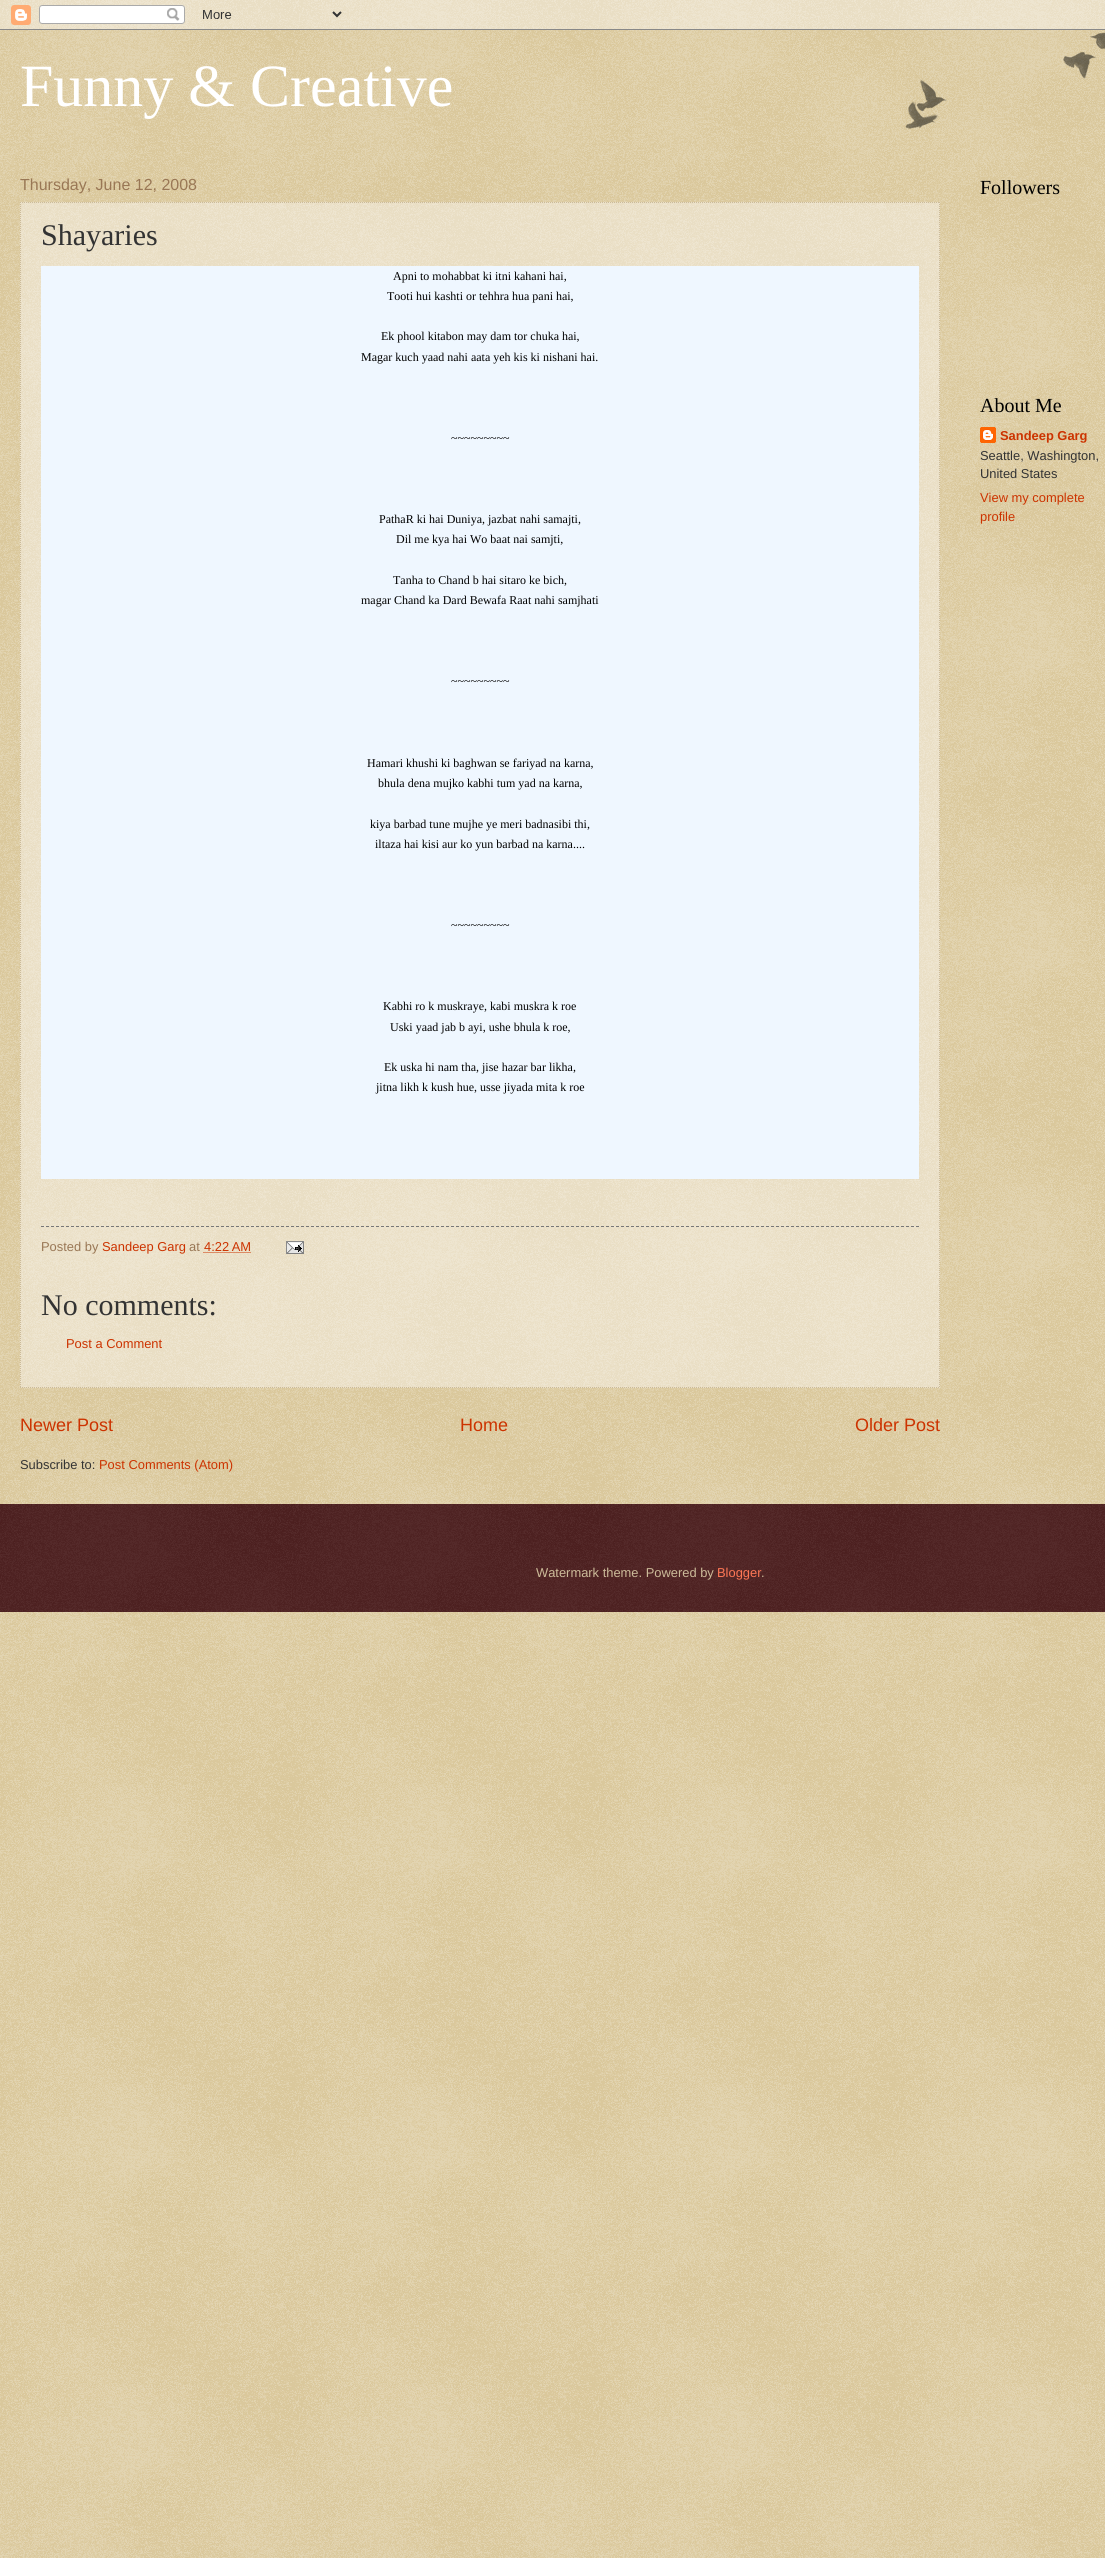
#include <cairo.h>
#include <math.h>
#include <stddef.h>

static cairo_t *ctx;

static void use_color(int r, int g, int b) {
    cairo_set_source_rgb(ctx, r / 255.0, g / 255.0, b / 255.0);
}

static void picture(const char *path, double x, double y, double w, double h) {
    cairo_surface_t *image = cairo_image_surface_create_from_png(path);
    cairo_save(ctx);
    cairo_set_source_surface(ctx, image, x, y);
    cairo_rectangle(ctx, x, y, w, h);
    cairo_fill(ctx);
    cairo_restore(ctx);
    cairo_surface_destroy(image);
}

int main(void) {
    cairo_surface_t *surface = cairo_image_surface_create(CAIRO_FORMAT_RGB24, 1105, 2558);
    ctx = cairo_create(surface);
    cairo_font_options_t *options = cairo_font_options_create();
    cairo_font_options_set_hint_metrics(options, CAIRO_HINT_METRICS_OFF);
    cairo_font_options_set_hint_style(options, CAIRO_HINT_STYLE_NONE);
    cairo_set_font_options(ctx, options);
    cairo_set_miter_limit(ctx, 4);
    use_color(192, 161, 84);
    cairo_paint(ctx);
    picture("img1.png", 0, 0, 1105, 2558);
    picture("img2.png", 0, 0, 1105, 30);
    picture("img3.png", 905, 32, 200, 97);
    cairo_select_font_face(ctx, "Liberation Serif", CAIRO_FONT_SLANT_NORMAL, CAIRO_FONT_WEIGHT_NORMAL);
    cairo_set_font_size(ctx, 60);
    use_color(255, 255, 255);
    cairo_move_to(ctx, 20, 106);
    cairo_show_text(ctx, "Funny & Creative");
    cairo_select_font_face(ctx, "Liberation Sans", CAIRO_FONT_SLANT_NORMAL, CAIRO_FONT_WEIGHT_NORMAL);
    cairo_set_font_size(ctx, 16);
    use_color(153, 119, 85);
    cairo_move_to(ctx, 20, 190);
    cairo_show_text(ctx, "Thursday, June 12, 2008");
    cairo_set_source_rgba(ctx, 1, 1, 1, 0.4);
    cairo_rectangle(ctx, 20, 202, 920, 1186);
    cairo_fill(ctx);
    cairo_new_path(ctx);
    cairo_move_to(ctx, 20, 202.5);
    cairo_line_to(ctx, 940, 202.5);
    use_color(204, 187, 153);
    cairo_set_line_width(ctx, 1);
    cairo_set_dash(ctx, (double[]){1, 1}, 2, 0);
    cairo_stroke(ctx);
    cairo_new_path(ctx);
    cairo_move_to(ctx, 939.5, 202);
    cairo_line_to(ctx, 939.5, 1388);
    cairo_stroke(ctx);
    cairo_new_path(ctx);
    cairo_move_to(ctx, 20, 1387.5);
    cairo_line_to(ctx, 940, 1387.5);
    cairo_stroke(ctx);
    cairo_new_path(ctx);
    cairo_move_to(ctx, 20.5, 202);
    cairo_line_to(ctx, 20.5, 1388);
    cairo_stroke(ctx);
    cairo_select_font_face(ctx, "Liberation Serif", CAIRO_FONT_SLANT_NORMAL, CAIRO_FONT_WEIGHT_NORMAL);
    cairo_set_font_size(ctx, 30);
    use_color(51, 51, 51);
    cairo_move_to(ctx, 41, 245);
    cairo_show_text(ctx, "Shayaries");
    use_color(239, 247, 255);
    cairo_rectangle(ctx, 41, 266, 878, 913);
    cairo_fill(ctx);
    cairo_set_font_size(ctx, 12);
    use_color(0, 0, 0);
    cairo_move_to(ctx, 393, 280);
    cairo_show_text(ctx, "Apni to mohabbat ki itni kahani hai,");
    cairo_move_to(ctx, 387, 300);
    cairo_show_text(ctx, "Tooti hui kashti or tehhra hua pani hai,");
    cairo_move_to(ctx, 381, 340);
    cairo_show_text(ctx, "Ek phool kitabon may dam tor chuka hai,");
    cairo_move_to(ctx, 361, 361);
    cairo_show_text(ctx, "Magar kuch yaad nahi aata yeh kis ki nishani hai.");
    cairo_move_to(ctx, 451, 442);
    cairo_show_text(ctx, "~~~~~~~~~");
    cairo_move_to(ctx, 379, 523);
    cairo_show_text(ctx, "PathaR ki hai Duniya, jazbat nahi samajti,");
    cairo_move_to(ctx, 396, 543);
    cairo_show_text(ctx, "Dil me kya hai Wo baat nai samjti,");
    cairo_move_to(ctx, 393, 584);
    cairo_show_text(ctx, "Tanha to Chand b hai sitaro ke bich,");
    cairo_move_to(ctx, 361, 604);
    cairo_show_text(ctx, "magar Chand ka Dard Bewafa Raat nahi samjhati");
    cairo_move_to(ctx, 451, 685);
    cairo_show_text(ctx, "~~~~~~~~~");
    cairo_move_to(ctx, 367, 767);
    cairo_show_text(ctx, "Hamari khushi ki baghwan se fariyad na karna,");
    cairo_move_to(ctx, 378, 787);
    cairo_show_text(ctx, "bhula dena mujko kabhi tum yad na karna,");
    cairo_move_to(ctx, 370, 828);
    cairo_show_text(ctx, "kiya barbad tune mujhe ye meri badnasibi thi,");
    cairo_move_to(ctx, 375, 848);
    cairo_show_text(ctx, "iltaza hai kisi aur ko yun barbad na karna....");
    cairo_move_to(ctx, 451, 929);
    cairo_show_text(ctx, "~~~~~~~~~");
    cairo_move_to(ctx, 383, 1010);
    cairo_show_text(ctx, "Kabhi ro k muskraye, kabi muskra k roe");
    cairo_move_to(ctx, 390, 1031);
    cairo_show_text(ctx, "Uski yaad jab b ayi, ushe bhula k roe,");
    cairo_move_to(ctx, 384, 1071);
    cairo_show_text(ctx, "Ek uska hi nam tha, jise hazar bar likha,");
    cairo_move_to(ctx, 376, 1091);
    cairo_show_text(ctx, "jitna likh k kush hue, usse jiyada mita k roe");
    cairo_new_path(ctx);
    cairo_move_to(ctx, 41, 1226.5);
    cairo_line_to(ctx, 919, 1226.5);
    use_color(119, 119, 119);
    cairo_set_dash(ctx, (double[]){3, 2}, 2, 0);
    cairo_stroke(ctx);
    cairo_select_font_face(ctx, "Liberation Sans", CAIRO_FONT_SLANT_NORMAL, CAIRO_FONT_WEIGHT_NORMAL);
    cairo_set_font_size(ctx, 12.9);
    use_color(153, 119, 85);
    cairo_move_to(ctx, 41, 1251);
    cairo_show_text(ctx, "Posted by");
    use_color(204, 51, 0);
    cairo_move_to(ctx, 102, 1251);
    cairo_show_text(ctx, "Sandeep Garg");
    use_color(153, 119, 85);
    cairo_move_to(ctx, 189, 1251);
    cairo_show_text(ctx, "at");
    use_color(204, 51, 0);
    cairo_move_to(ctx, 204, 1251);
    cairo_show_text(ctx, "4:22 AM");
    cairo_new_path(ctx);
    cairo_move_to(ctx, 203.5, 1252.5);
    cairo_line_to(ctx, 250.5, 1252.5);
    cairo_set_dash(ctx, (double[]){1, 1}, 2, 0);
    cairo_stroke(ctx);
    picture("img4.png", 286, 1241, 18, 13);
    cairo_select_font_face(ctx, "Liberation Serif", CAIRO_FONT_SLANT_NORMAL, CAIRO_FONT_WEIGHT_NORMAL);
    cairo_set_font_size(ctx, 30);
    use_color(51, 51, 51);
    cairo_move_to(ctx, 41, 1315);
    cairo_show_text(ctx, "No comments:");
    cairo_select_font_face(ctx, "Liberation Sans", CAIRO_FONT_SLANT_NORMAL, CAIRO_FONT_WEIGHT_NORMAL);
    cairo_set_font_size(ctx, 12.9);
    use_color(204, 51, 0);
    cairo_move_to(ctx, 66, 1348);
    cairo_show_text(ctx, "Post a Comment");
    cairo_set_font_size(ctx, 18);
    cairo_move_to(ctx, 20, 1431);
    cairo_show_text(ctx, "Newer Post");
    cairo_move_to(ctx, 460, 1431);
    cairo_show_text(ctx, "Home");
    cairo_move_to(ctx, 855, 1431);
    cairo_show_text(ctx, "Older Post");
    cairo_set_font_size(ctx, 12.9);
    use_color(51, 51, 51);
    cairo_move_to(ctx, 20, 1469);
    cairo_show_text(ctx, "Subscribe to:");
    use_color(204, 51, 0);
    cairo_move_to(ctx, 99, 1469);
    cairo_show_text(ctx, "Post Comments (Atom)");
    cairo_select_font_face(ctx, "Liberation Serif", CAIRO_FONT_SLANT_NORMAL, CAIRO_FONT_WEIGHT_NORMAL);
    cairo_set_font_size(ctx, 20);
    use_color(0, 0, 0);
    cairo_move_to(ctx, 980, 194);
    cairo_show_text(ctx, "Followers");
    cairo_move_to(ctx, 980, 412);
    cairo_show_text(ctx, "About Me");
    picture("img5.png", 980, 427, 16, 16);
    cairo_select_font_face(ctx, "Liberation Sans", CAIRO_FONT_SLANT_NORMAL, CAIRO_FONT_WEIGHT_BOLD);
    cairo_set_font_size(ctx, 12.9);
    use_color(204, 51, 0);
    cairo_move_to(ctx, 1000, 440);
    cairo_show_text(ctx, "Sandeep Garg");
    cairo_select_font_face(ctx, "Liberation Sans", CAIRO_FONT_SLANT_NORMAL, CAIRO_FONT_WEIGHT_NORMAL);
    use_color(51, 51, 51);
    cairo_move_to(ctx, 980, 460);
    cairo_show_text(ctx, "Seattle, Washington,");
    cairo_move_to(ctx, 980, 478);
    cairo_show_text(ctx, "United States");
    use_color(204, 51, 0);
    cairo_move_to(ctx, 980, 502);
    cairo_show_text(ctx, "View my complete");
    cairo_move_to(ctx, 980, 521);
    cairo_show_text(ctx, "profile");
    use_color(51, 0, 0);
    cairo_rectangle(ctx, 0, 1504, 1105, 108);
    cairo_fill(ctx);
    picture("img6.png", 0, 1504, 1105, 108);
    use_color(204, 187, 153);
    cairo_move_to(ctx, 536, 1577);
    cairo_show_text(ctx, "Watermark theme. Powered by");
    use_color(255, 119, 85);
    cairo_move_to(ctx, 717, 1577);
    cairo_show_text(ctx, "Blogger");
    use_color(204, 187, 153);
    cairo_move_to(ctx, 761, 1577);
    cairo_show_text(ctx, ".");
    cairo_surface_write_to_png(surface, "result.png");
    cairo_font_options_destroy(options);
    cairo_destroy(ctx);
    cairo_surface_destroy(surface);
    return 0;
}
